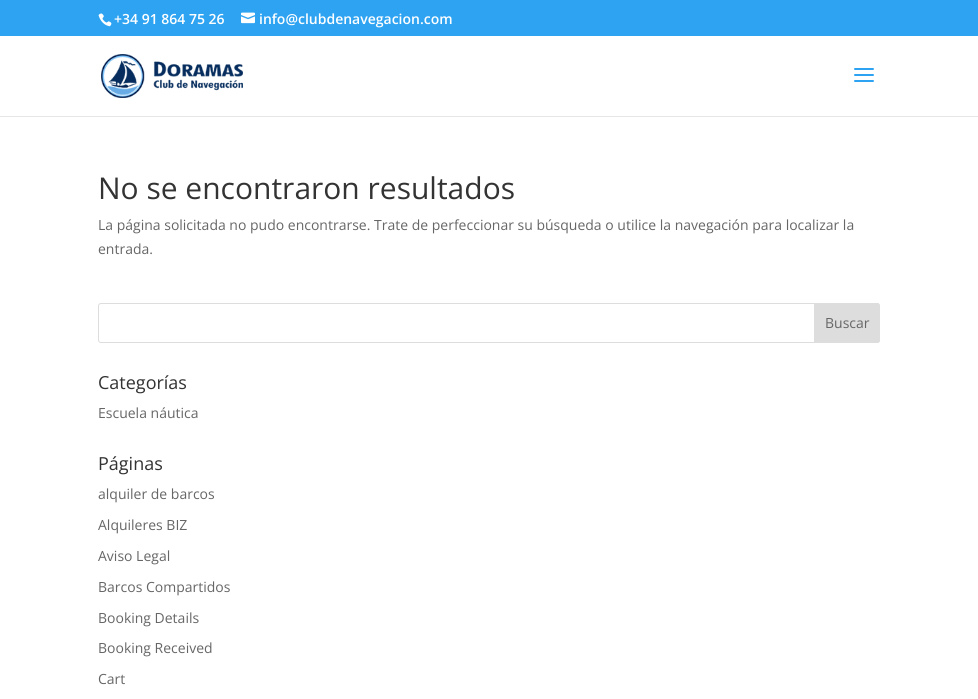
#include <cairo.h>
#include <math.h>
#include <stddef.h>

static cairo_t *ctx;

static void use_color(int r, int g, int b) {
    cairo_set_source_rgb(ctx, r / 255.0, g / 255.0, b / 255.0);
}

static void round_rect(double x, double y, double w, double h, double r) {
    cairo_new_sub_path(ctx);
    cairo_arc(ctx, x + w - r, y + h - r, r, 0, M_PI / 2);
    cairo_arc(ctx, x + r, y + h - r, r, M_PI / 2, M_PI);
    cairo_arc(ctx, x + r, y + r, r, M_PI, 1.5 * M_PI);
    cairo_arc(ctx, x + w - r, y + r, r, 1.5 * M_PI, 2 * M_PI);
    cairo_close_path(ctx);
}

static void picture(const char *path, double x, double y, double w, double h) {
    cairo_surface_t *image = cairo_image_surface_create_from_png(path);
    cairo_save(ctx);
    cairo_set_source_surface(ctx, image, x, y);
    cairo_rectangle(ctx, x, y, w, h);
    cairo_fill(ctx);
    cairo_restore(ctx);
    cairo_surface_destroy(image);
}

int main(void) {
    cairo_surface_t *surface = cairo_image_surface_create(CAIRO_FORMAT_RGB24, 978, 699);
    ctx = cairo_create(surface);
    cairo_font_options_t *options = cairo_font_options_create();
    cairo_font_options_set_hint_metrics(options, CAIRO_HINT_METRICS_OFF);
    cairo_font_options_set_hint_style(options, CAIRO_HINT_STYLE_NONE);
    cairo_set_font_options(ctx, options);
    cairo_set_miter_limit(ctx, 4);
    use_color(255, 255, 255);
    cairo_paint(ctx);
    use_color(46, 163, 242);
    cairo_rectangle(ctx, 0, 0, 978, 36);
    cairo_fill(ctx);
    picture("img1.png", 98, 13, 14, 14);
    cairo_select_font_face(ctx, "Open Sans SemiBold", CAIRO_FONT_SLANT_NORMAL, CAIRO_FONT_WEIGHT_NORMAL);
    cairo_set_font_size(ctx, 14);
    use_color(255, 255, 255);
    cairo_move_to(ctx, 114, 24);
    cairo_show_text(ctx, "+34 91 864 75 26");
    picture("img2.png", 241, 12, 14, 12);
    cairo_move_to(ctx, 259, 24);
    cairo_show_text(ctx, "info@clubdenavegacion.com");
    use_color(230, 230, 230);
    cairo_rectangle(ctx, 0, 116, 978, 1);
    cairo_fill(ctx);
    picture("img3.png", 101, 54, 142, 44);
    picture("img4.png", 854, 68, 20, 14);
    cairo_select_font_face(ctx, "Open Sans", CAIRO_FONT_SLANT_NORMAL, CAIRO_FONT_WEIGHT_NORMAL);
    cairo_set_font_size(ctx, 30);
    use_color(51, 51, 51);
    cairo_move_to(ctx, 98, 199);
    cairo_show_text(ctx, "No se encontraron resultados");
    cairo_set_font_size(ctx, 14);
    use_color(102, 102, 102);
    cairo_move_to(ctx, 98, 230);
    cairo_show_text(ctx, "La página solicitada no pudo encontrarse. Trate de perfeccionar su búsqueda o utilice la navegación para localizar la");
    cairo_move_to(ctx, 98, 254);
    cairo_show_text(ctx, "entrada.");
    round_rect(98.5, 303.5, 781, 39, 2.5);
    use_color(221, 221, 221);
    cairo_set_line_width(ctx, 1);
    cairo_stroke(ctx);
    cairo_new_path(ctx);
    cairo_move_to(ctx, 814.5, 303.5);
    cairo_line_to(ctx, 877, 303.5);
    cairo_curve_to(ctx, 878.5, 303.5, 879.5, 304.5, 879.5, 306);
    cairo_line_to(ctx, 879.5, 340);
    cairo_curve_to(ctx, 879.5, 341.5, 878.5, 342.5, 877, 342.5);
    cairo_line_to(ctx, 814.5, 342.5);
    cairo_close_path(ctx);
    cairo_fill_preserve(ctx);
    cairo_stroke(ctx);
    use_color(102, 102, 102);
    cairo_move_to(ctx, 825, 328);
    cairo_show_text(ctx, "Buscar");
    cairo_set_font_size(ctx, 18);
    use_color(51, 51, 51);
    cairo_move_to(ctx, 98, 389);
    cairo_show_text(ctx, "Categorías");
    cairo_set_font_size(ctx, 14);
    use_color(102, 102, 102);
    cairo_move_to(ctx, 98, 418);
    cairo_show_text(ctx, "Escuela náutica");
    cairo_set_font_size(ctx, 18);
    use_color(51, 51, 51);
    cairo_move_to(ctx, 98, 470);
    cairo_show_text(ctx, "Páginas");
    cairo_set_font_size(ctx, 14);
    use_color(102, 102, 102);
    cairo_move_to(ctx, 98, 499);
    cairo_show_text(ctx, "alquiler de barcos");
    cairo_move_to(ctx, 98, 530);
    cairo_show_text(ctx, "Alquileres BIZ");
    cairo_move_to(ctx, 98, 561);
    cairo_show_text(ctx, "Aviso Legal");
    cairo_move_to(ctx, 98, 592);
    cairo_show_text(ctx, "Barcos Compartidos");
    cairo_move_to(ctx, 98, 623);
    cairo_show_text(ctx, "Booking Details");
    cairo_move_to(ctx, 98, 653);
    cairo_show_text(ctx, "Booking Received");
    cairo_move_to(ctx, 98, 684);
    cairo_show_text(ctx, "Cart");
    cairo_surface_write_to_png(surface, "result.png");
    cairo_font_options_destroy(options);
    cairo_destroy(ctx);
    cairo_surface_destroy(surface);
    return 0;
}
